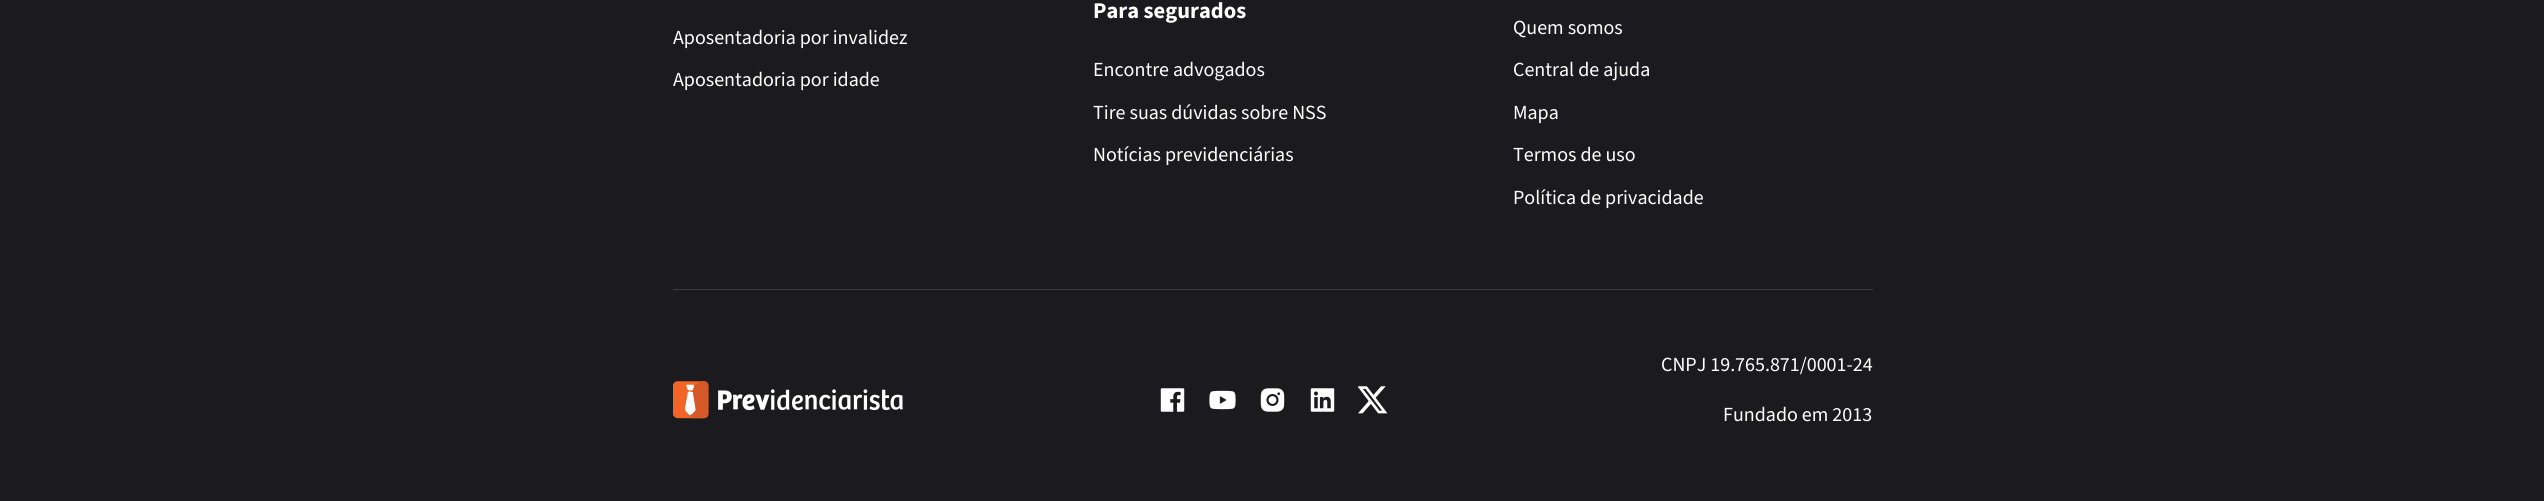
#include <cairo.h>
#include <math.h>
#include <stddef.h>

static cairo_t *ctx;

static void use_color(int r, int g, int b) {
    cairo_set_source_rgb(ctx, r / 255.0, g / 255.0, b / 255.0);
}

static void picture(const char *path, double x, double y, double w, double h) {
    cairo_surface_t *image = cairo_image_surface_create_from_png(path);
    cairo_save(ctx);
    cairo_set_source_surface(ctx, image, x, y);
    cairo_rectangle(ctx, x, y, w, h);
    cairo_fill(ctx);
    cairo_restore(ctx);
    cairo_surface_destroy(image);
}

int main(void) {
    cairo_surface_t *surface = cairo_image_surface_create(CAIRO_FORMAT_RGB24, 2544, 501);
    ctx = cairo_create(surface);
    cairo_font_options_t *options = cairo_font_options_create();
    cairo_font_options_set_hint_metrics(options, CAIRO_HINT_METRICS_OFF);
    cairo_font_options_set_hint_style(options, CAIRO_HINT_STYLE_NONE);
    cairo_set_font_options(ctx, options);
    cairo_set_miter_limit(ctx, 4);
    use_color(26, 26, 31);
    cairo_paint(ctx);
    cairo_select_font_face(ctx, "Source Sans 3", CAIRO_FONT_SLANT_NORMAL, CAIRO_FONT_WEIGHT_NORMAL);
    cairo_set_font_size(ctx, 20);
    use_color(255, 255, 255);
    cairo_move_to(ctx, 673, 44);
    cairo_show_text(ctx, "Aposentadoria por invalidez");
    cairo_move_to(ctx, 673, 86);
    cairo_show_text(ctx, "Aposentadoria por idade");
    cairo_select_font_face(ctx, "Source Sans 3", CAIRO_FONT_SLANT_NORMAL, CAIRO_FONT_WEIGHT_BOLD);
    cairo_set_font_size(ctx, 22.5);
    cairo_move_to(ctx, 1093, 18);
    cairo_show_text(ctx, "Para segurados");
    cairo_select_font_face(ctx, "Source Sans 3", CAIRO_FONT_SLANT_NORMAL, CAIRO_FONT_WEIGHT_NORMAL);
    cairo_set_font_size(ctx, 20);
    cairo_move_to(ctx, 1093, 76);
    cairo_show_text(ctx, "Encontre advogados");
    cairo_move_to(ctx, 1093, 119);
    cairo_show_text(ctx, "Tire suas dúvidas sobre NSS");
    cairo_move_to(ctx, 1093, 161);
    cairo_show_text(ctx, "Notícias previdenciárias");
    cairo_move_to(ctx, 1513, 34);
    cairo_show_text(ctx, "Quem somos");
    cairo_move_to(ctx, 1513, 76);
    cairo_show_text(ctx, "Central de ajuda");
    cairo_move_to(ctx, 1513, 119);
    cairo_show_text(ctx, "Mapa");
    cairo_move_to(ctx, 1513, 161);
    cairo_show_text(ctx, "Termos de uso");
    cairo_move_to(ctx, 1513, 204);
    cairo_show_text(ctx, "Política de privacidade");
    use_color(61, 61, 73);
    cairo_rectangle(ctx, 673, 289, 1200, 1);
    cairo_fill(ctx);
    picture("img1.png", 673, 381, 230, 38);
    picture("img2.png", 1160, 388, 25, 24);
    picture("img3.png", 1209, 390, 27, 20);
    picture("img4.png", 1260, 388, 25, 24);
    picture("img5.png", 1310, 388, 25, 24);
    picture("img6.png", 1358, 386, 30, 28);
    use_color(255, 255, 255);
    cairo_move_to(ctx, 1661, 371);
    cairo_show_text(ctx, "CNPJ 19.765.871/0001-24");
    cairo_move_to(ctx, 1723, 421);
    cairo_show_text(ctx, "Fundado em 2013");
    cairo_surface_write_to_png(surface, "result.png");
    cairo_font_options_destroy(options);
    cairo_destroy(ctx);
    cairo_surface_destroy(surface);
    return 0;
}
